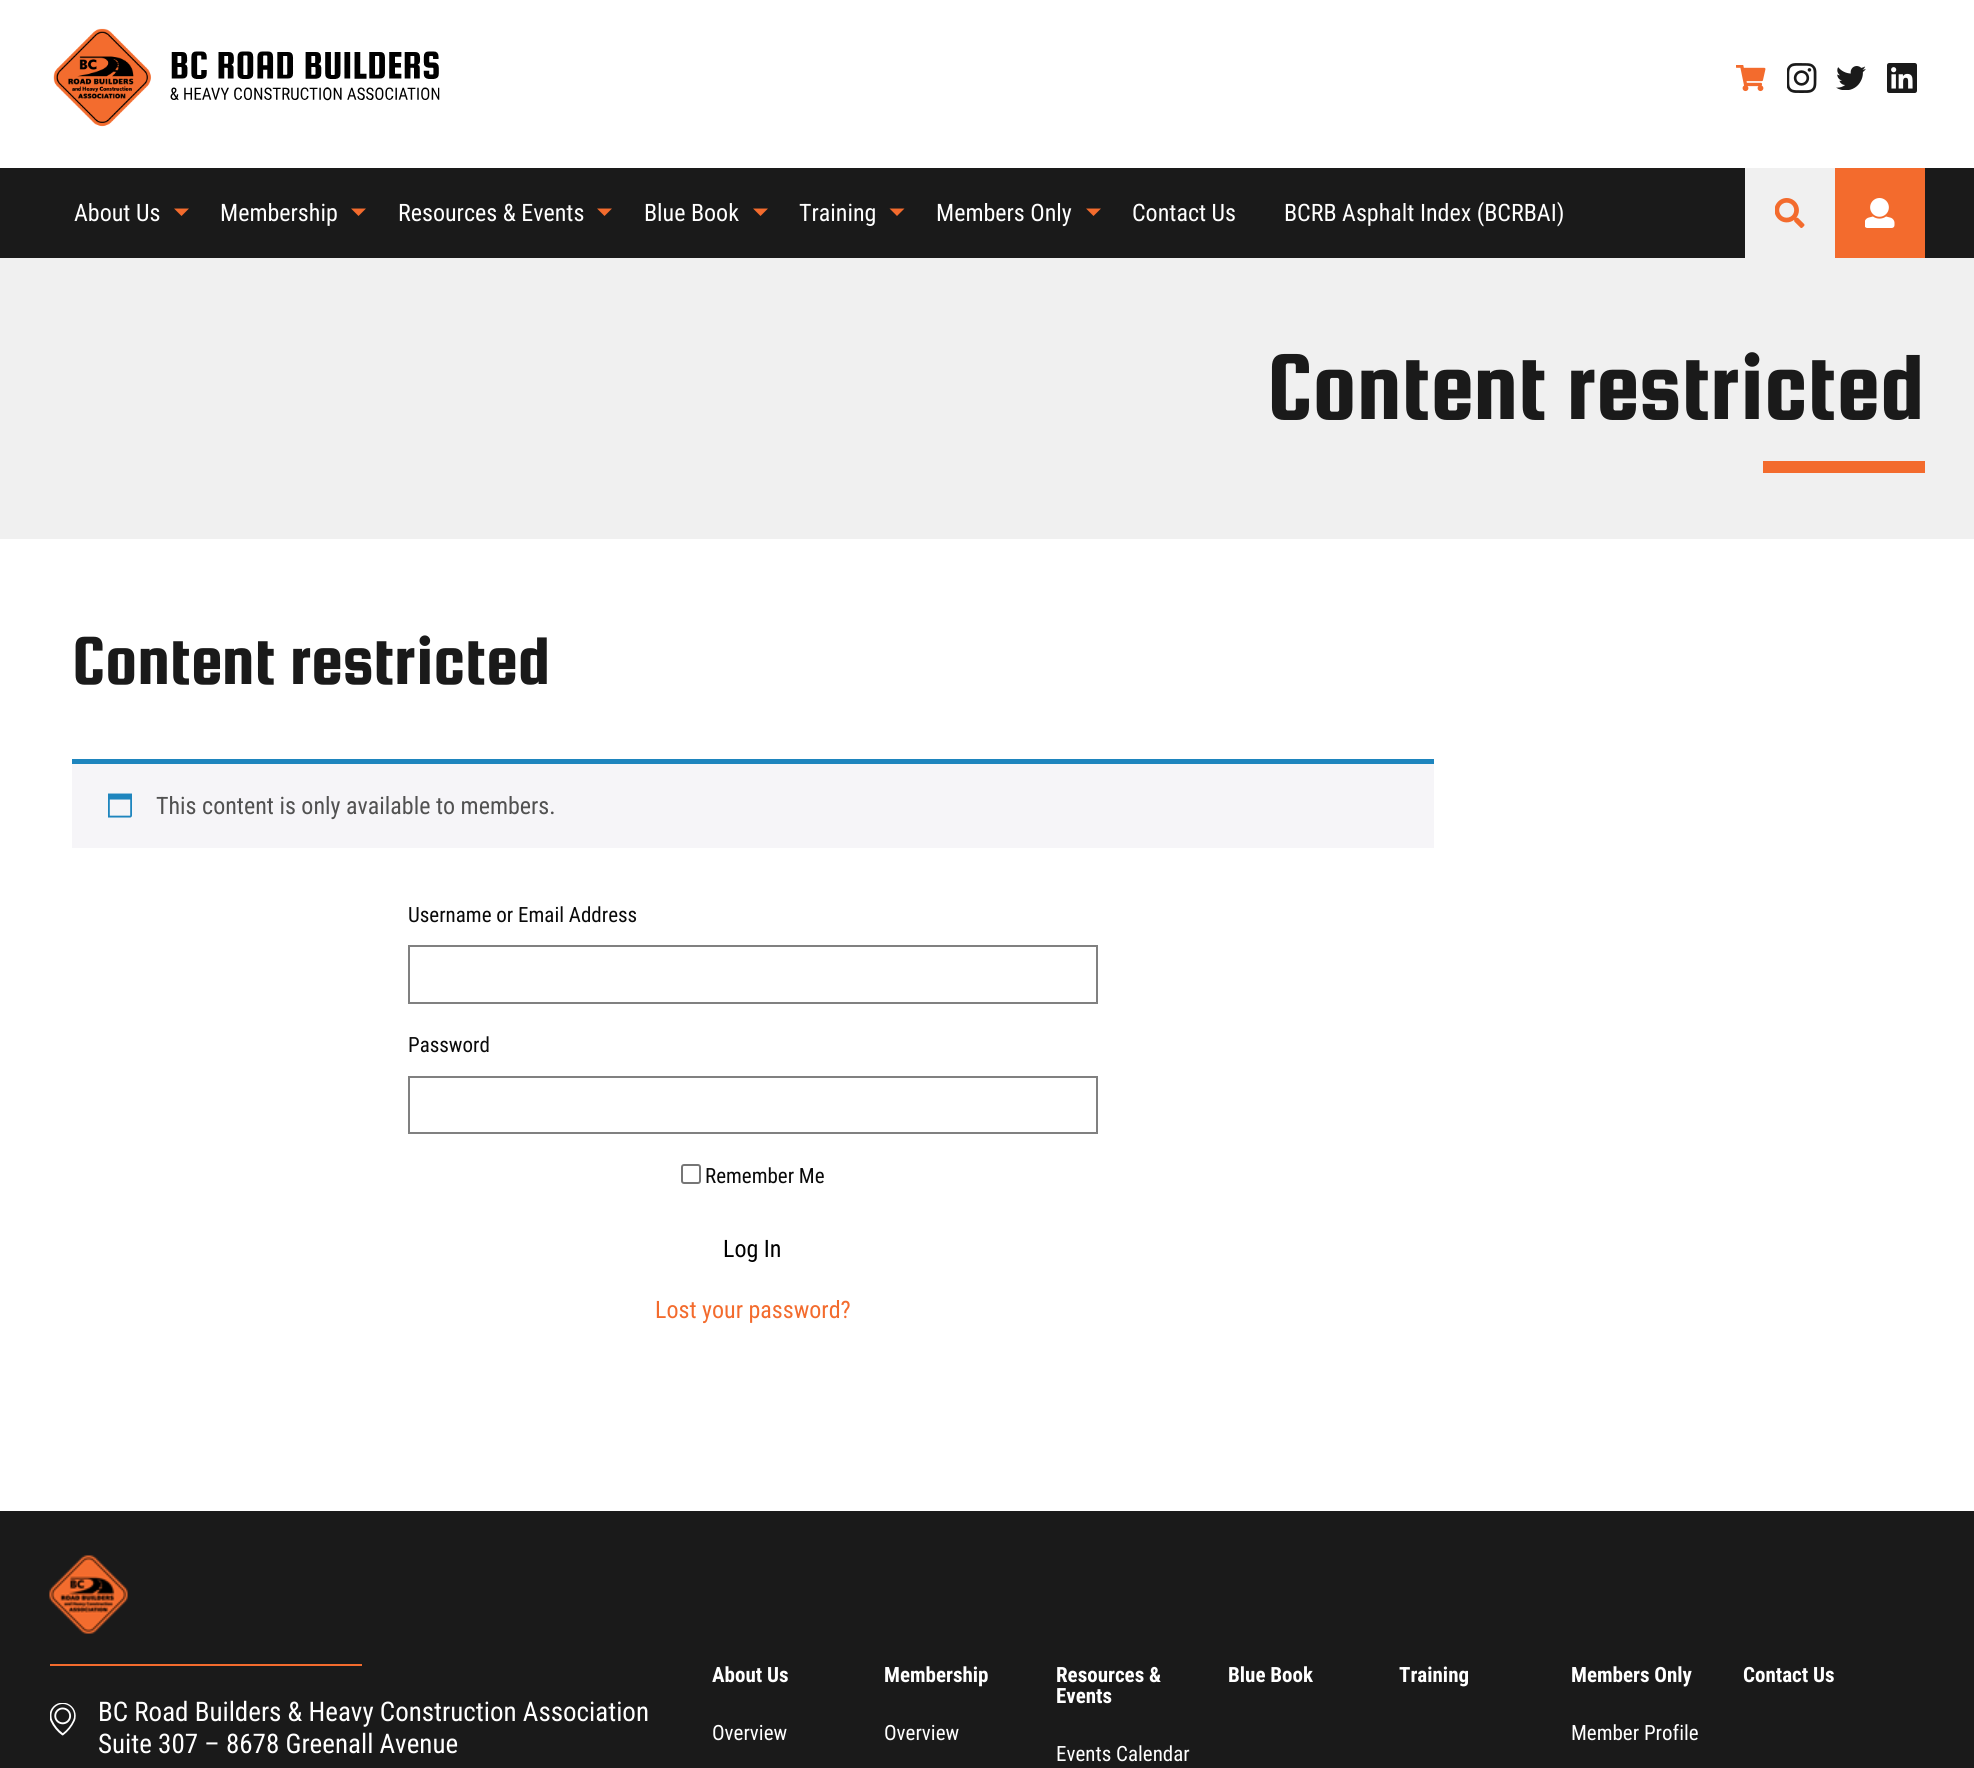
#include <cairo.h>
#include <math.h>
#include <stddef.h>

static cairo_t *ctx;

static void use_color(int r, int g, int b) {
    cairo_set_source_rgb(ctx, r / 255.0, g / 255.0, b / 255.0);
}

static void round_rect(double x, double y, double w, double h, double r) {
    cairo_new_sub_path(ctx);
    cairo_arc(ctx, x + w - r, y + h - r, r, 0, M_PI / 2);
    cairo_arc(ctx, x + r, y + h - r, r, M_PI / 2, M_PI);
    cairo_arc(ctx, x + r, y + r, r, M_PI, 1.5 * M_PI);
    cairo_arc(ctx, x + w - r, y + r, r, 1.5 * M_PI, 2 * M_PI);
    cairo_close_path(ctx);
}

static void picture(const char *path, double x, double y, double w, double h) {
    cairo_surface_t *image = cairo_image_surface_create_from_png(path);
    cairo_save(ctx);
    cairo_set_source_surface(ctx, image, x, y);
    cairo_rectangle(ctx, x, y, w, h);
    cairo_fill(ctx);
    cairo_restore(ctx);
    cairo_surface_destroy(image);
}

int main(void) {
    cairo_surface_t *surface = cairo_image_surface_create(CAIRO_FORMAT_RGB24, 1974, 1768);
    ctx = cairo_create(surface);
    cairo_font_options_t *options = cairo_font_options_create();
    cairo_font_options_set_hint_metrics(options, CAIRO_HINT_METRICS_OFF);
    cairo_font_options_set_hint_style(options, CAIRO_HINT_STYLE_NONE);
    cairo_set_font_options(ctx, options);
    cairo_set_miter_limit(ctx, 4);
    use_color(255, 255, 255);
    cairo_paint(ctx);
    picture("img1.png", 53, 28, 387, 99);
    picture("img2.png", 1736, 65, 30, 27);
    picture("img3.png", 1787, 63, 30, 30);
    picture("img4.png", 1836, 66, 30, 24);
    picture("img5.png", 1887, 63, 30, 30);
    use_color(26, 26, 26);
    cairo_rectangle(ctx, 0, 168, 1974, 90);
    cairo_fill(ctx);
    cairo_select_font_face(ctx, "Roboto Condensed", CAIRO_FONT_SLANT_NORMAL, CAIRO_FONT_WEIGHT_NORMAL);
    cairo_set_font_size(ctx, 24);
    use_color(255, 255, 255);
    cairo_move_to(ctx, 74, 221);
    cairo_show_text(ctx, "About Us");
    use_color(243, 107, 45);
    cairo_new_path(ctx);
    cairo_move_to(ctx, 174, 208.5);
    cairo_line_to(ctx, 189, 208.5);
    cairo_line_to(ctx, 181.5, 216);
    cairo_close_path(ctx);
    cairo_fill(ctx);
    use_color(255, 255, 255);
    cairo_move_to(ctx, 220, 221);
    cairo_show_text(ctx, "Membership");
    use_color(243, 107, 45);
    cairo_new_path(ctx);
    cairo_move_to(ctx, 351, 208.5);
    cairo_line_to(ctx, 366, 208.5);
    cairo_line_to(ctx, 358.5, 216);
    cairo_close_path(ctx);
    cairo_fill(ctx);
    use_color(255, 255, 255);
    cairo_move_to(ctx, 398, 221);
    cairo_show_text(ctx, "Resources & Events");
    use_color(243, 107, 45);
    cairo_new_path(ctx);
    cairo_move_to(ctx, 597, 208.5);
    cairo_line_to(ctx, 612, 208.5);
    cairo_line_to(ctx, 604.5, 216);
    cairo_close_path(ctx);
    cairo_fill(ctx);
    use_color(255, 255, 255);
    cairo_move_to(ctx, 644, 221);
    cairo_show_text(ctx, "Blue Book");
    use_color(243, 107, 45);
    cairo_new_path(ctx);
    cairo_move_to(ctx, 753, 208.5);
    cairo_line_to(ctx, 768, 208.5);
    cairo_line_to(ctx, 760.5, 216);
    cairo_close_path(ctx);
    cairo_fill(ctx);
    use_color(255, 255, 255);
    cairo_move_to(ctx, 799, 221);
    cairo_show_text(ctx, "Training");
    use_color(243, 107, 45);
    cairo_new_path(ctx);
    cairo_move_to(ctx, 889.5, 208.5);
    cairo_line_to(ctx, 904.5, 208.5);
    cairo_line_to(ctx, 897, 216);
    cairo_close_path(ctx);
    cairo_fill(ctx);
    use_color(255, 255, 255);
    cairo_move_to(ctx, 936, 221);
    cairo_show_text(ctx, "Members Only");
    use_color(243, 107, 45);
    cairo_new_path(ctx);
    cairo_move_to(ctx, 1086, 208.5);
    cairo_line_to(ctx, 1101, 208.5);
    cairo_line_to(ctx, 1093.5, 216);
    cairo_close_path(ctx);
    cairo_fill(ctx);
    use_color(255, 255, 255);
    cairo_move_to(ctx, 1132, 221);
    cairo_show_text(ctx, "Contact Us");
    cairo_move_to(ctx, 1284, 221);
    cairo_show_text(ctx, "BCRB Asphalt Index (BCRBAI)");
    use_color(240, 240, 240);
    cairo_rectangle(ctx, 1745, 168, 90, 90);
    cairo_fill(ctx);
    picture("img6.png", 1775, 198, 30, 30);
    use_color(243, 107, 45);
    cairo_rectangle(ctx, 1835, 168, 90, 90);
    cairo_fill(ctx);
    picture("img7.png", 1865, 198, 30, 30);
    use_color(240, 240, 240);
    cairo_rectangle(ctx, 0, 258, 1974, 281);
    cairo_fill(ctx);
    cairo_select_font_face(ctx, "Squada One", CAIRO_FONT_SLANT_NORMAL, CAIRO_FONT_WEIGHT_NORMAL);
    cairo_set_font_size(ctx, 99);
    use_color(26, 26, 26);
    cairo_move_to(ctx, 1267, 419);
    cairo_show_text(ctx, "Content restricted");
    use_color(243, 107, 45);
    cairo_rectangle(ctx, 1763, 461, 162, 12);
    cairo_fill(ctx);
    cairo_set_font_size(ctx, 72);
    use_color(26, 26, 26);
    cairo_move_to(ctx, 72, 684);
    cairo_show_text(ctx, "Content restricted");
    use_color(246, 245, 248);
    cairo_rectangle(ctx, 72, 764, 1362, 84);
    cairo_fill(ctx);
    use_color(30, 133, 190);
    cairo_rectangle(ctx, 72, 759, 1362, 5);
    cairo_fill(ctx);
    picture("img8.png", 108, 793, 24, 25);
    cairo_select_font_face(ctx, "Roboto Condensed", CAIRO_FONT_SLANT_NORMAL, CAIRO_FONT_WEIGHT_NORMAL);
    cairo_set_font_size(ctx, 24);
    use_color(81, 81, 81);
    cairo_move_to(ctx, 156, 814);
    cairo_show_text(ctx, "This content is only available to members.");
    cairo_set_font_size(ctx, 21);
    use_color(10, 10, 10);
    cairo_move_to(ctx, 408, 922);
    cairo_show_text(ctx, "Username or Email Address");
    cairo_rectangle(ctx, 409, 946, 688, 57);
    use_color(128, 128, 128);
    cairo_stroke(ctx);
    use_color(10, 10, 10);
    cairo_move_to(ctx, 408, 1052);
    cairo_show_text(ctx, "Password");
    cairo_rectangle(ctx, 409, 1077, 688, 56);
    use_color(128, 128, 128);
    cairo_stroke(ctx);
    round_rect(682, 1165, 18, 18, 2);
    use_color(118, 118, 118);
    cairo_stroke(ctx);
    use_color(10, 10, 10);
    cairo_move_to(ctx, 705, 1183);
    cairo_show_text(ctx, "Remember Me");
    cairo_set_font_size(ctx, 24);
    use_color(0, 0, 0);
    cairo_move_to(ctx, 723, 1257);
    cairo_show_text(ctx, "Log In");
    use_color(243, 107, 45);
    cairo_move_to(ctx, 655, 1318);
    cairo_show_text(ctx, "Lost your password?");
    use_color(26, 26, 26);
    cairo_rectangle(ctx, 0, 1511, 1974, 257);
    cairo_fill(ctx);
    use_color(243, 107, 45);
    cairo_rectangle(ctx, 50, 1664, 312, 2);
    cairo_fill(ctx);
    picture("img9.png", 49, 1555, 79, 79);
    picture("img10.png", 50, 1703, 26, 33);
    cairo_set_font_size(ctx, 27);
    use_color(255, 255, 255);
    cairo_move_to(ctx, 98, 1721);
    cairo_show_text(ctx, "BC Road Builders & Heavy Construction Association");
    cairo_move_to(ctx, 98, 1753);
    cairo_show_text(ctx, "Suite 307 – 8678 Greenall Avenue");
    cairo_select_font_face(ctx, "Roboto Condensed", CAIRO_FONT_SLANT_NORMAL, CAIRO_FONT_WEIGHT_BOLD);
    cairo_set_font_size(ctx, 21);
    cairo_move_to(ctx, 712, 1682);
    cairo_show_text(ctx, "About Us");
    cairo_select_font_face(ctx, "Roboto Condensed", CAIRO_FONT_SLANT_NORMAL, CAIRO_FONT_WEIGHT_NORMAL);
    cairo_move_to(ctx, 712, 1740);
    cairo_show_text(ctx, "Overview");
    cairo_select_font_face(ctx, "Roboto Condensed", CAIRO_FONT_SLANT_NORMAL, CAIRO_FONT_WEIGHT_BOLD);
    cairo_move_to(ctx, 884, 1682);
    cairo_show_text(ctx, "Membership");
    cairo_select_font_face(ctx, "Roboto Condensed", CAIRO_FONT_SLANT_NORMAL, CAIRO_FONT_WEIGHT_NORMAL);
    cairo_move_to(ctx, 884, 1740);
    cairo_show_text(ctx, "Overview");
    cairo_select_font_face(ctx, "Roboto Condensed", CAIRO_FONT_SLANT_NORMAL, CAIRO_FONT_WEIGHT_BOLD);
    cairo_move_to(ctx, 1056, 1682);
    cairo_show_text(ctx, "Resources &");
    cairo_move_to(ctx, 1056, 1703);
    cairo_show_text(ctx, "Events");
    cairo_select_font_face(ctx, "Roboto Condensed", CAIRO_FONT_SLANT_NORMAL, CAIRO_FONT_WEIGHT_NORMAL);
    cairo_move_to(ctx, 1056, 1761);
    cairo_show_text(ctx, "Events Calendar");
    cairo_select_font_face(ctx, "Roboto Condensed", CAIRO_FONT_SLANT_NORMAL, CAIRO_FONT_WEIGHT_BOLD);
    cairo_move_to(ctx, 1228, 1682);
    cairo_show_text(ctx, "Blue Book");
    cairo_move_to(ctx, 1399, 1682);
    cairo_show_text(ctx, "Training");
    cairo_move_to(ctx, 1571, 1682);
    cairo_show_text(ctx, "Members Only");
    cairo_select_font_face(ctx, "Roboto Condensed", CAIRO_FONT_SLANT_NORMAL, CAIRO_FONT_WEIGHT_NORMAL);
    cairo_move_to(ctx, 1571, 1740);
    cairo_show_text(ctx, "Member Profile");
    cairo_select_font_face(ctx, "Roboto Condensed", CAIRO_FONT_SLANT_NORMAL, CAIRO_FONT_WEIGHT_BOLD);
    cairo_move_to(ctx, 1743, 1682);
    cairo_show_text(ctx, "Contact Us");
    cairo_surface_write_to_png(surface, "result.png");
    cairo_font_options_destroy(options);
    cairo_destroy(ctx);
    cairo_surface_destroy(surface);
    return 0;
}
